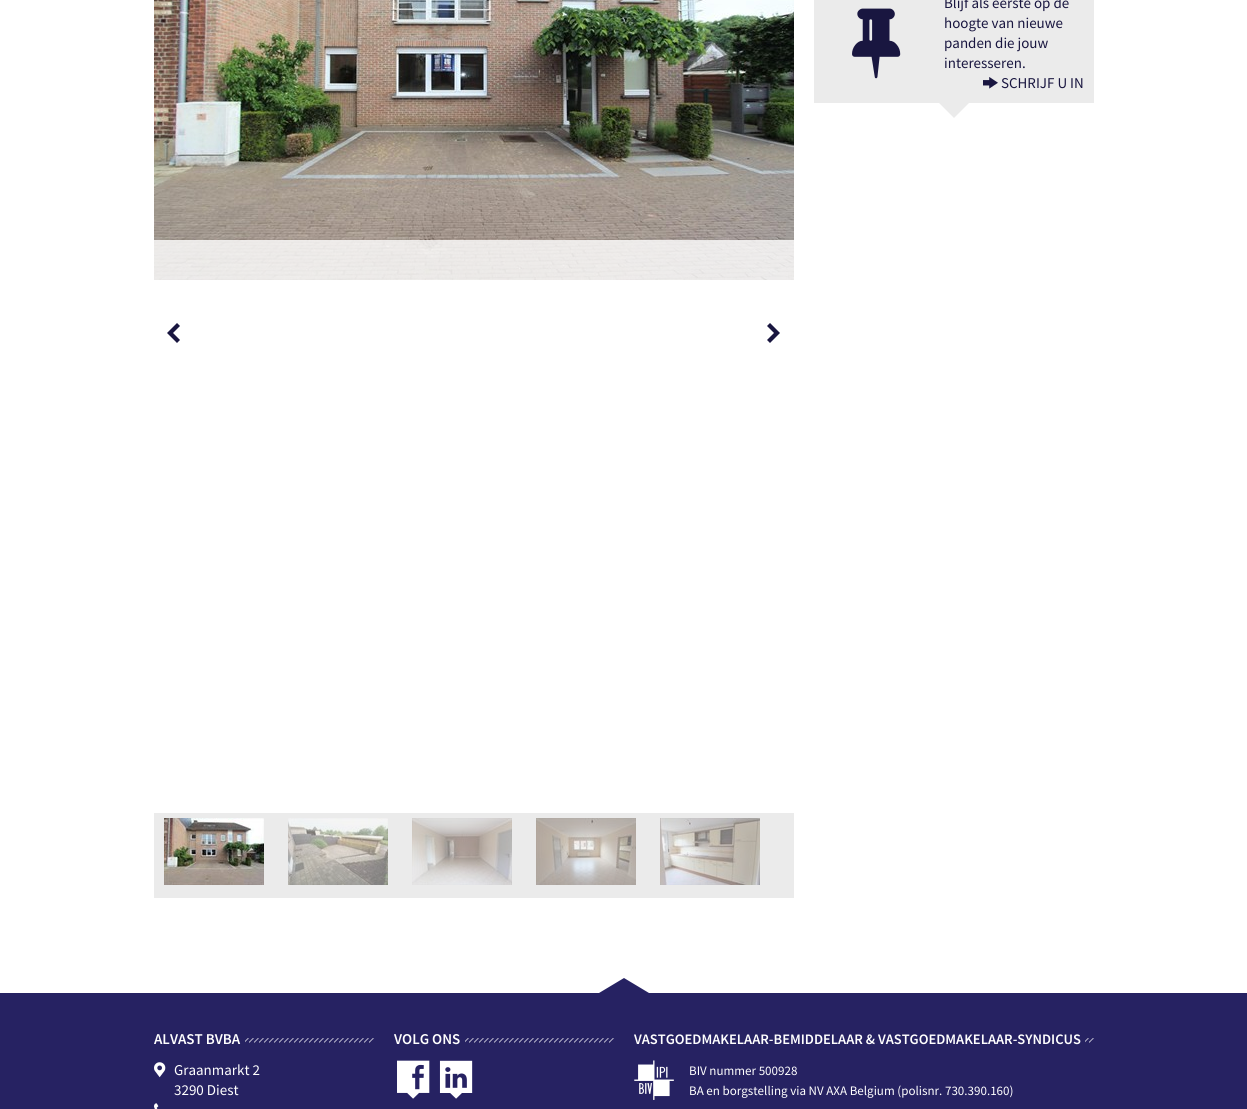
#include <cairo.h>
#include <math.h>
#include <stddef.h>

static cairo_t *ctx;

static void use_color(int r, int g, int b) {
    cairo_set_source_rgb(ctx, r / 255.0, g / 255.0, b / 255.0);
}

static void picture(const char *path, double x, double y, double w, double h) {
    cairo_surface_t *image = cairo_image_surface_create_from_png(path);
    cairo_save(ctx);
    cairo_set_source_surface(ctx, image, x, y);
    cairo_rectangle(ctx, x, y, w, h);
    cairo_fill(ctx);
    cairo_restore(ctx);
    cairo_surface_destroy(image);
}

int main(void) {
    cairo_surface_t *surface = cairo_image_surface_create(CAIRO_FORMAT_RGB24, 1247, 1109);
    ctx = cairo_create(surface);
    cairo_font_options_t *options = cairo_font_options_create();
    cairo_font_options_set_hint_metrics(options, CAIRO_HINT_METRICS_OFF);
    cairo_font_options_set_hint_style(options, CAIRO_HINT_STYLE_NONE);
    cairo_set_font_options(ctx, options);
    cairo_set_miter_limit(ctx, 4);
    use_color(255, 255, 255);
    cairo_paint(ctx);
    picture("img1.png", 154, 0, 640, 280);
    cairo_set_source_rgba(ctx, 1, 1, 1, 0.8);
    cairo_rectangle(ctx, 154, 240, 640, 40);
    cairo_fill(ctx);
    use_color(25, 22, 64);
    cairo_new_path(ctx);
    cairo_move_to(ctx, 167, 333);
    cairo_line_to(ctx, 177, 323);
    cairo_line_to(ctx, 180, 326);
    cairo_line_to(ctx, 173, 333);
    cairo_line_to(ctx, 180, 340);
    cairo_line_to(ctx, 177, 343);
    cairo_close_path(ctx);
    cairo_fill(ctx);
    cairo_new_path(ctx);
    cairo_move_to(ctx, 767, 340);
    cairo_line_to(ctx, 774, 333);
    cairo_line_to(ctx, 767, 326);
    cairo_line_to(ctx, 770, 323);
    cairo_line_to(ctx, 780, 333);
    cairo_line_to(ctx, 770, 343);
    cairo_close_path(ctx);
    cairo_fill(ctx);
    use_color(235, 235, 235);
    cairo_rectangle(ctx, 154, 813, 640, 85);
    cairo_fill(ctx);
    picture("img2.png", 164, 818, 100, 67);
    picture("img3.png", 288, 818, 100, 67);
    picture("img4.png", 412, 818, 100, 67);
    picture("img5.png", 536, 818, 100, 67);
    picture("img6.png", 660, 818, 100, 67);
    cairo_rectangle(ctx, 814, 0, 280, 103);
    cairo_fill(ctx);
    picture("img7.png", 852, 8, 49, 71);
    cairo_select_font_face(ctx, "Source Sans Pro", CAIRO_FONT_SLANT_NORMAL, CAIRO_FONT_WEIGHT_NORMAL);
    cairo_set_font_size(ctx, 15);
    use_color(25, 22, 64);
    cairo_move_to(ctx, 944, 8);
    cairo_show_text(ctx, "Blijf als eerste op de");
    cairo_move_to(ctx, 944, 28);
    cairo_show_text(ctx, "hoogte van nieuwe");
    cairo_move_to(ctx, 944, 48);
    cairo_show_text(ctx, "panden die jouw");
    cairo_move_to(ctx, 944, 68);
    cairo_show_text(ctx, "interesseren.");
    picture("img8.png", 983, 77, 15, 12);
    cairo_move_to(ctx, 1001, 88);
    cairo_show_text(ctx, "SCHRIJF U IN");
    use_color(235, 235, 235);
    cairo_new_path(ctx);
    cairo_move_to(ctx, 939, 103);
    cairo_line_to(ctx, 969, 103);
    cairo_line_to(ctx, 954, 118);
    cairo_close_path(ctx);
    cairo_fill(ctx);
    use_color(38, 34, 98);
    cairo_rectangle(ctx, 0, 993, 1247, 116);
    cairo_fill(ctx);
    cairo_new_path(ctx);
    cairo_move_to(ctx, 649, 993);
    cairo_line_to(ctx, 599, 993);
    cairo_line_to(ctx, 624, 978);
    cairo_close_path(ctx);
    cairo_fill(ctx);
    picture("img9.png", 245, 1038, 129, 5);
    cairo_select_font_face(ctx, "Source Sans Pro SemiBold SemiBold", CAIRO_FONT_SLANT_NORMAL, CAIRO_FONT_WEIGHT_NORMAL);
    use_color(255, 255, 255);
    cairo_move_to(ctx, 154, 1044);
    cairo_show_text(ctx, "ALVAST BVBA");
    picture("img10.png", 154, 1062, 12, 16);
    cairo_select_font_face(ctx, "Source Sans Pro", CAIRO_FONT_SLANT_NORMAL, CAIRO_FONT_WEIGHT_NORMAL);
    cairo_move_to(ctx, 174, 1075);
    cairo_show_text(ctx, "Graanmarkt 2");
    cairo_move_to(ctx, 174, 1095);
    cairo_show_text(ctx, "3290 Diest");
    picture("img11.png", 154, 1103, 5, 6);
    picture("img12.png", 465, 1038, 149, 5);
    cairo_select_font_face(ctx, "Source Sans Pro SemiBold SemiBold", CAIRO_FONT_SLANT_NORMAL, CAIRO_FONT_WEIGHT_NORMAL);
    cairo_move_to(ctx, 394, 1044);
    cairo_show_text(ctx, "VOLG ONS");
    picture("img13.png", 397, 1060, 33, 39);
    picture("img14.png", 439, 1060, 34, 39);
    picture("img15.png", 1085, 1038, 9, 5);
    cairo_set_font_size(ctx, 14.5);
    cairo_move_to(ctx, 634, 1044);
    cairo_show_text(ctx, "VASTGOEDMAKELAAR-BEMIDDELAAR & VASTGOEDMAKELAAR-SYNDICUS");
    picture("img16.png", 634, 1060, 40, 40);
    cairo_select_font_face(ctx, "Source Sans Pro", CAIRO_FONT_SLANT_NORMAL, CAIRO_FONT_WEIGHT_NORMAL);
    cairo_set_font_size(ctx, 13);
    cairo_move_to(ctx, 689, 1075);
    cairo_show_text(ctx, "BIV nummer 500928");
    cairo_move_to(ctx, 689, 1095);
    cairo_show_text(ctx, "BA en borgstelling via NV AXA Belgium (polisnr. 730.390.160)");
    cairo_surface_write_to_png(surface, "result.png");
    cairo_font_options_destroy(options);
    cairo_destroy(ctx);
    cairo_surface_destroy(surface);
    return 0;
}
